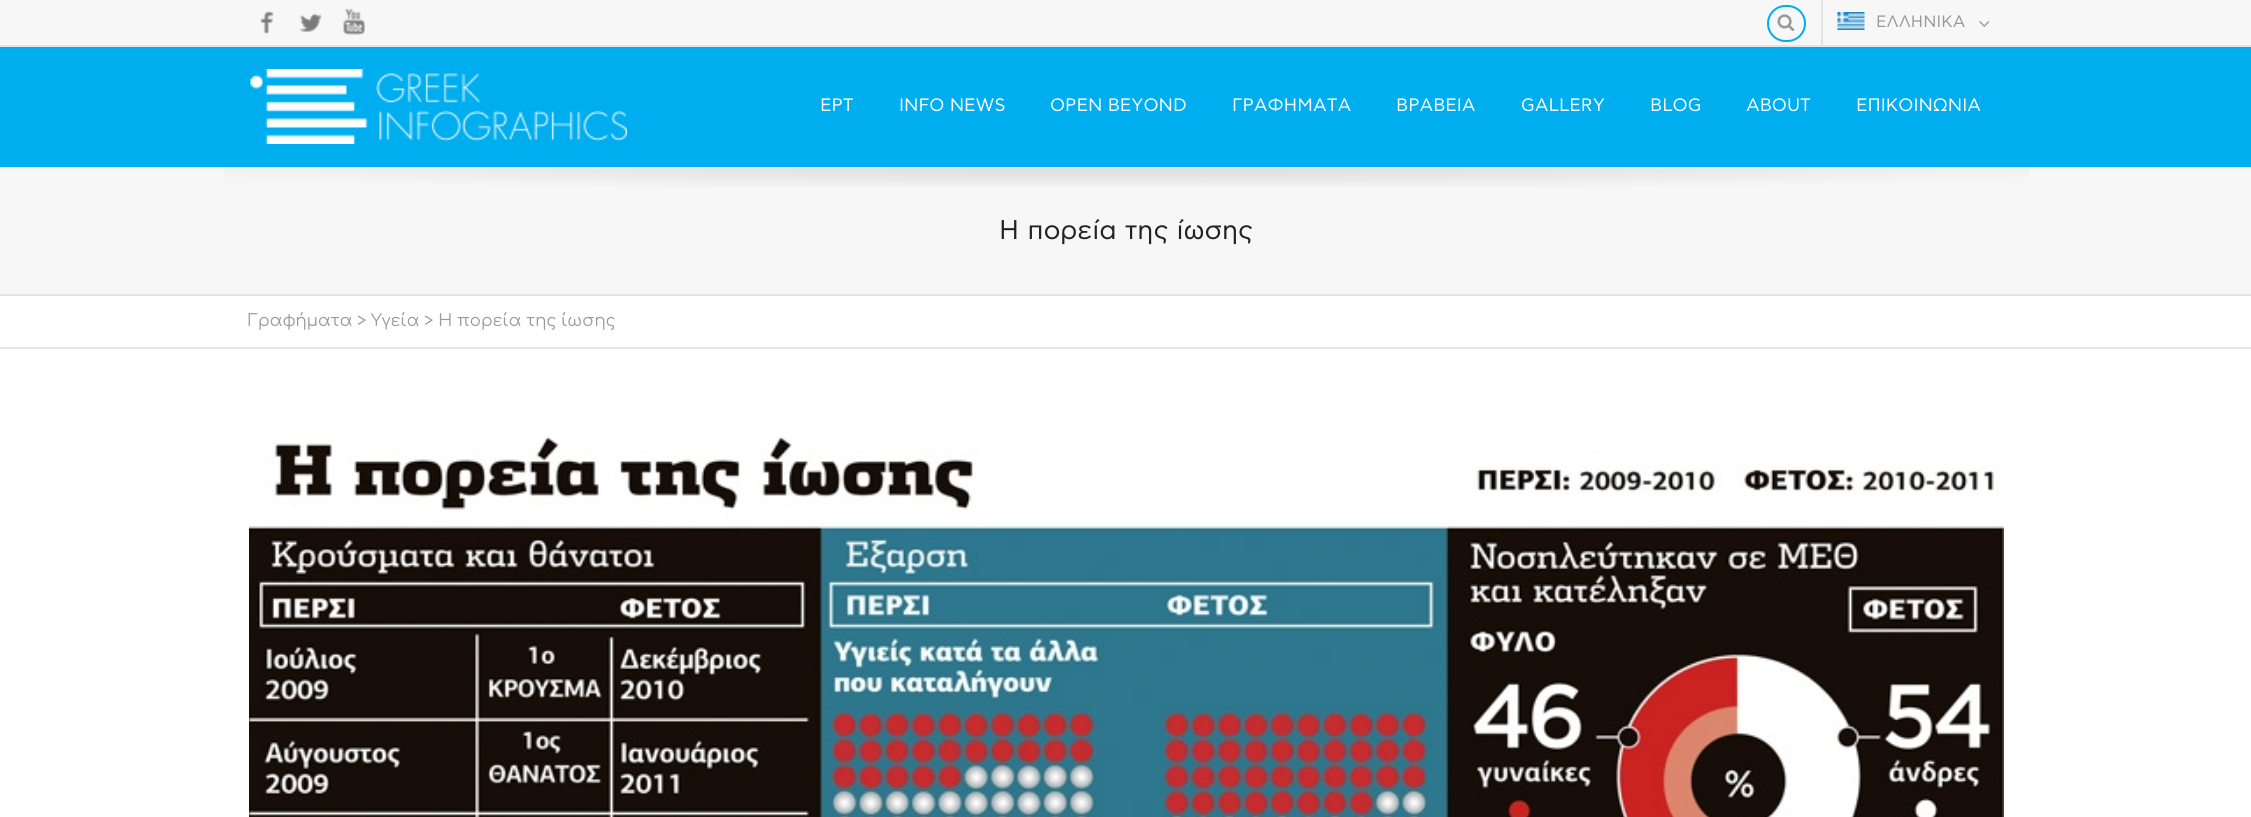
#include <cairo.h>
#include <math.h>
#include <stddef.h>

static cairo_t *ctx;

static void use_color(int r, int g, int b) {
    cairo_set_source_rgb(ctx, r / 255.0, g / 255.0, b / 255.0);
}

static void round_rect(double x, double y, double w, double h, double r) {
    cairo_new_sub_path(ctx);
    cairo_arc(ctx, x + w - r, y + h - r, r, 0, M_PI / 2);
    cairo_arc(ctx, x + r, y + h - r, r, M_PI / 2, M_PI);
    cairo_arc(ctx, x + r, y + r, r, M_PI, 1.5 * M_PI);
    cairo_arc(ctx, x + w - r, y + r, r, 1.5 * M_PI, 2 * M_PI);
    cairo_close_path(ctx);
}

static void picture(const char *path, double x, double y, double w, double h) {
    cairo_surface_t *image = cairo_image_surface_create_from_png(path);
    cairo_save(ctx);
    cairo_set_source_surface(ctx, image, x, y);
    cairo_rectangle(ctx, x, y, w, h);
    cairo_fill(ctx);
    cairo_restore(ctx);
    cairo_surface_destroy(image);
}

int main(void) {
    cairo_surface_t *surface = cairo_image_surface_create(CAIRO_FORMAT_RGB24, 2251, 817);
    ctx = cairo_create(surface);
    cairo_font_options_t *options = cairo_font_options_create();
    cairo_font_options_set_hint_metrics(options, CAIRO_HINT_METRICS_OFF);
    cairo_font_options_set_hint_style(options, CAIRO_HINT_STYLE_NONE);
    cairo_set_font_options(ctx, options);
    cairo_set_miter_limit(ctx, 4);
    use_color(247, 247, 247);
    cairo_paint(ctx);
    use_color(228, 228, 228);
    cairo_rectangle(ctx, 0, 45, 2251, 2);
    cairo_fill(ctx);
    picture("img1.png", 260, 11, 14, 23);
    picture("img2.png", 299, 13, 23, 20);
    picture("img3.png", 343, 8, 22, 27);
    round_rect(1768, 6, 37, 35, 17.5);
    use_color(0, 174, 240);
    cairo_stroke(ctx);
    picture("img4.png", 1777, 14, 18, 17);
    use_color(228, 228, 228);
    cairo_rectangle(ctx, 1821, 0, 2, 45);
    cairo_fill(ctx);
    picture("img5.png", 1837, 12, 28, 18);
    cairo_select_font_face(ctx, "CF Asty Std", CAIRO_FONT_SLANT_NORMAL, CAIRO_FONT_WEIGHT_NORMAL);
    cairo_set_font_size(ctx, 16.5);
    use_color(153, 153, 153);
    cairo_move_to(ctx, 1876, 27);
    cairo_show_text(ctx, "ΕΛΛΗΝΙΚΑ");
    picture("img6.png", 1979, 21, 11, 6);
    use_color(0, 174, 240);
    cairo_rectangle(ctx, 0, 47, 2251, 120);
    cairo_fill(ctx);
    use_color(228, 228, 228);
    cairo_rectangle(ctx, 0, 167, 2251, 1);
    cairo_fill(ctx);
    picture("img7.png", 250, 69, 377, 75);
    cairo_set_font_size(ctx, 18);
    use_color(255, 255, 255);
    cairo_move_to(ctx, 820, 111);
    cairo_show_text(ctx, "ΕΡΤ");
    cairo_move_to(ctx, 899, 111);
    cairo_show_text(ctx, "INFO NEWS");
    cairo_move_to(ctx, 1050, 111);
    cairo_show_text(ctx, "OPEN BEYOND");
    cairo_move_to(ctx, 1232, 111);
    cairo_show_text(ctx, "ΓΡΑΦΗΜΑΤΑ");
    cairo_move_to(ctx, 1396, 111);
    cairo_show_text(ctx, "ΒΡΑΒΕΙΑ");
    cairo_move_to(ctx, 1521, 111);
    cairo_show_text(ctx, "GALLERY");
    cairo_move_to(ctx, 1650, 111);
    cairo_show_text(ctx, "BLOG");
    cairo_move_to(ctx, 1746, 111);
    cairo_show_text(ctx, "ABOUT");
    cairo_move_to(ctx, 1856, 111);
    cairo_show_text(ctx, "ΕΠΙΚΟΙΝΩΝΙΑ");
    cairo_rectangle(ctx, 0, 296, 2251, 521);
    cairo_fill(ctx);
    picture("img8.png", 224, 168, 1805, 19);
    use_color(228, 228, 228);
    cairo_rectangle(ctx, 0, 294, 2251, 2);
    cairo_fill(ctx);
    cairo_set_font_size(ctx, 27);
    use_color(34, 34, 34);
    cairo_move_to(ctx, 999, 239);
    cairo_show_text(ctx, "Η πορεία της ίωσης");
    use_color(228, 228, 228);
    cairo_rectangle(ctx, 0, 347, 2251, 2);
    cairo_fill(ctx);
    cairo_select_font_face(ctx, "Comfortaa", CAIRO_FONT_SLANT_NORMAL, CAIRO_FONT_WEIGHT_NORMAL);
    cairo_set_font_size(ctx, 16.5);
    use_color(153, 153, 153);
    cairo_move_to(ctx, 248, 326);
    cairo_show_text(ctx, "Γραφήματα > Υγεία > Η πορεία της ίωσης");
    picture("img9.png", 249, 436, 1755, 381);
    cairo_surface_write_to_png(surface, "result.png");
    cairo_font_options_destroy(options);
    cairo_destroy(ctx);
    cairo_surface_destroy(surface);
    return 0;
}
